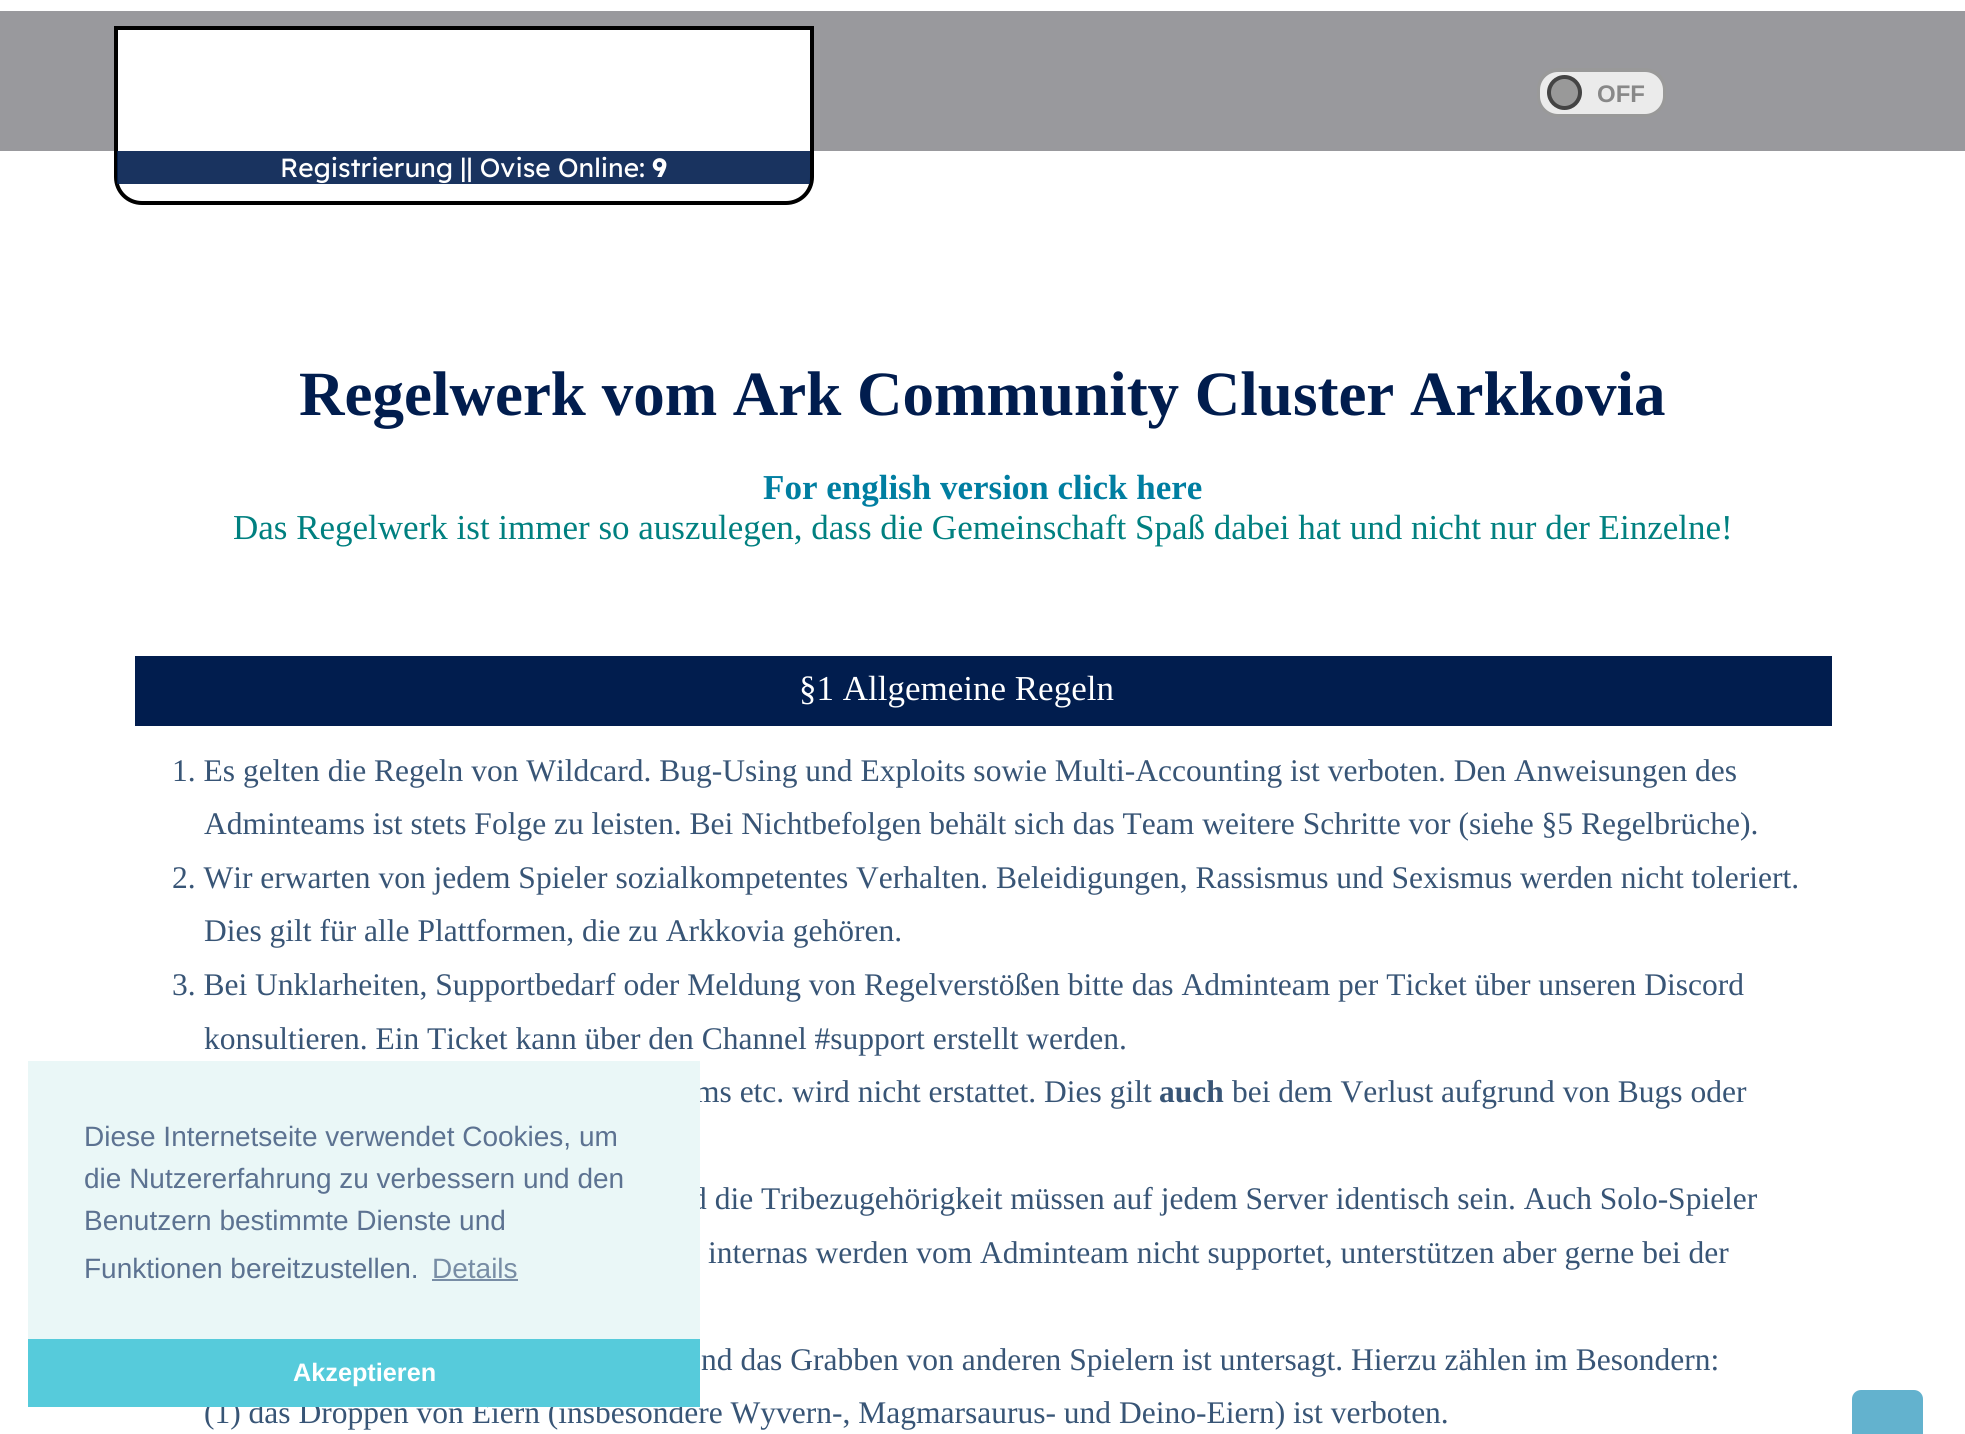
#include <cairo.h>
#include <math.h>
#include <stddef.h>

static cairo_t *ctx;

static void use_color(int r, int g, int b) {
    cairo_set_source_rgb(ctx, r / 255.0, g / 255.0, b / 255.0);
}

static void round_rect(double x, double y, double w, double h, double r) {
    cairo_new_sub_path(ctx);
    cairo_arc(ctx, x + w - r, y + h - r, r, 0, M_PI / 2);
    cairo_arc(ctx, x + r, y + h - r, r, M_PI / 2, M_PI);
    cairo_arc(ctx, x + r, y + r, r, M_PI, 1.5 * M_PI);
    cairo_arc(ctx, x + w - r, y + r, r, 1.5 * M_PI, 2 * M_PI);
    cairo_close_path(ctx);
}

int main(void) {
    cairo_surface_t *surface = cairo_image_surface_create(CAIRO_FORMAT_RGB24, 1965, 1434);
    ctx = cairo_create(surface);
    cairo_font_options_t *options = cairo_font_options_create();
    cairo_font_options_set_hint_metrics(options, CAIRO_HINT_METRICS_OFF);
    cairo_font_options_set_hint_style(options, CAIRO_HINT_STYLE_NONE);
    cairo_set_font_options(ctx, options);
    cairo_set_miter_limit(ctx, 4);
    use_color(255, 255, 255);
    cairo_paint(ctx);
    use_color(153, 153, 157);
    cairo_rectangle(ctx, 0, 11, 1965, 140);
    cairo_fill(ctx);
    round_rect(1539, 70, 125, 45, 19);
    use_color(153, 153, 153);
    cairo_set_line_width(ctx, 4);
    cairo_stroke(ctx);
    use_color(235, 235, 235);
    round_rect(1540, 72, 123, 42, 18);
    cairo_fill(ctx);
    use_color(153, 153, 153);
    cairo_arc(ctx, 1564.5, 92.5, 15.5, 0, 2 * M_PI);
    cairo_fill_preserve(ctx);
    use_color(68, 68, 68);
    cairo_stroke(ctx);
    cairo_select_font_face(ctx, "Liberation Sans", CAIRO_FONT_SLANT_NORMAL, CAIRO_FONT_WEIGHT_BOLD);
    cairo_set_font_size(ctx, 24);
    use_color(136, 136, 136);
    cairo_move_to(ctx, 1597, 102);
    cairo_show_text(ctx, "OFF");
    use_color(255, 255, 255);
    cairo_new_path(ctx);
    cairo_move_to(ctx, 116, 28);
    cairo_line_to(ctx, 812, 28);
    cairo_line_to(ctx, 812, 177);
    cairo_curve_to(ctx, 812, 191.5, 800.5, 203, 786, 203);
    cairo_line_to(ctx, 142, 203);
    cairo_curve_to(ctx, 127.5, 203, 116, 191.5, 116, 177);
    cairo_close_path(ctx);
    cairo_fill_preserve(ctx);
    use_color(0, 0, 0);
    cairo_stroke(ctx);
    cairo_set_source_rgba(ctx, 0.004, 0.114, 0.306, 0.9);
    cairo_rectangle(ctx, 117, 151, 693, 33);
    cairo_fill(ctx);
    cairo_select_font_face(ctx, "Readex Pro", CAIRO_FONT_SLANT_NORMAL, CAIRO_FONT_WEIGHT_NORMAL);
    cairo_set_font_size(ctx, 26.25);
    use_color(255, 255, 255);
    cairo_move_to(ctx, 280, 177);
    cairo_show_text(ctx, "Registrierung || Ovise Online:");
    cairo_select_font_face(ctx, "Readex Pro", CAIRO_FONT_SLANT_NORMAL, CAIRO_FONT_WEIGHT_BOLD);
    cairo_move_to(ctx, 652, 177);
    cairo_show_text(ctx, "9");
    use_color(99, 178, 206);
    round_rect(1852, 1390, 71, 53, 9);
    cairo_fill(ctx);
    cairo_select_font_face(ctx, "Liberation Serif", CAIRO_FONT_SLANT_NORMAL, CAIRO_FONT_WEIGHT_BOLD);
    cairo_set_font_size(ctx, 63);
    use_color(1, 29, 78);
    cairo_move_to(ctx, 299, 415);
    cairo_show_text(ctx, "Regelwerk vom Ark Community Cluster Arkkovia");
    cairo_set_font_size(ctx, 35);
    use_color(0, 126, 161);
    cairo_move_to(ctx, 763, 499);
    cairo_show_text(ctx, "For english version click here");
    cairo_select_font_face(ctx, "Liberation Serif", CAIRO_FONT_SLANT_NORMAL, CAIRO_FONT_WEIGHT_NORMAL);
    use_color(0, 128, 128);
    cairo_move_to(ctx, 233, 539);
    cairo_show_text(ctx, "Das Regelwerk ist immer so auszulegen, dass die Gemeinschaft Spaß dabei hat und nicht nur der Einzelne!");
    use_color(1, 29, 78);
    cairo_rectangle(ctx, 135, 656, 1697, 70);
    cairo_fill(ctx);
    use_color(255, 255, 255);
    cairo_move_to(ctx, 799, 700);
    cairo_show_text(ctx, "§1 Allgemeine Regeln");
    cairo_set_font_size(ctx, 31.5);
    use_color(56, 85, 118);
    cairo_move_to(ctx, 172, 781);
    cairo_show_text(ctx, "1. Es gelten die Regeln von Wildcard. Bug-Using und Exploits sowie Multi-Accounting ist verboten. Den Anweisungen des");
    cairo_move_to(ctx, 204, 834);
    cairo_show_text(ctx, "Adminteams ist stets Folge zu leisten. Bei Nichtbefolgen behält sich das Team weitere Schritte vor (siehe §5 Regelbrüche).");
    cairo_move_to(ctx, 172, 888);
    cairo_show_text(ctx, "2. Wir erwarten von jedem Spieler sozialkompetentes Verhalten. Beleidigungen, Rassismus und Sexismus werden nicht toleriert.");
    cairo_move_to(ctx, 204, 941);
    cairo_show_text(ctx, "Dies gilt für alle Plattformen, die zu Arkkovia gehören.");
    cairo_move_to(ctx, 172, 995);
    cairo_show_text(ctx, "3. Bei Unklarheiten, Supportbedarf oder Meldung von Regelverstößen bitte das Adminteam per Ticket über unseren Discord");
    cairo_move_to(ctx, 204, 1049);
    cairo_show_text(ctx, "konsultieren. Ein Ticket kann über den Channel #support erstellt werden.");
    cairo_move_to(ctx, 695, 1102);
    cairo_show_text(ctx, "ms etc. wird nicht erstattet. Dies gilt");
    cairo_select_font_face(ctx, "Liberation Serif", CAIRO_FONT_SLANT_NORMAL, CAIRO_FONT_WEIGHT_BOLD);
    cairo_move_to(ctx, 1159, 1102);
    cairo_show_text(ctx, "auch");
    cairo_select_font_face(ctx, "Liberation Serif", CAIRO_FONT_SLANT_NORMAL, CAIRO_FONT_WEIGHT_NORMAL);
    cairo_move_to(ctx, 1232, 1102);
    cairo_show_text(ctx, "bei dem Verlust aufgrund von Bugs oder");
    cairo_move_to(ctx, 691, 1209);
    cairo_show_text(ctx, "d die Tribezugehörigkeit müssen auf jedem Server identisch sein. Auch Solo-Spieler");
    cairo_move_to(ctx, 708, 1263);
    cairo_show_text(ctx, "internas werden vom Adminteam nicht supportet, unterstützen aber gerne bei der");
    cairo_move_to(ctx, 701, 1370);
    cairo_show_text(ctx, "nd das Grabben von anderen Spielern ist untersagt. Hierzu zählen im Besondern:");
    cairo_move_to(ctx, 204, 1423);
    cairo_show_text(ctx, "(1) das Droppen von Eiern (insbesondere Wyvern-, Magmarsaurus- und Deino-Eiern) ist verboten.");
    use_color(234, 247, 247);
    cairo_rectangle(ctx, 28, 1061, 672, 278);
    cairo_fill(ctx);
    cairo_select_font_face(ctx, "Liberation Sans", CAIRO_FONT_SLANT_NORMAL, CAIRO_FONT_WEIGHT_NORMAL);
    cairo_set_font_size(ctx, 28);
    use_color(92, 114, 145);
    cairo_move_to(ctx, 84, 1146);
    cairo_show_text(ctx, "Diese Internetseite verwendet Cookies, um");
    cairo_move_to(ctx, 84, 1188);
    cairo_show_text(ctx, "die Nutzererfahrung zu verbessern und den");
    cairo_move_to(ctx, 84, 1230);
    cairo_show_text(ctx, "Benutzern bestimmte Dienste und");
    cairo_move_to(ctx, 84, 1278);
    cairo_show_text(ctx, "Funktionen bereitzustellen.");
    use_color(120, 141, 165);
    cairo_move_to(ctx, 432, 1278);
    cairo_show_text(ctx, "Details");
    cairo_rectangle(ctx, 432, 1279, 86, 2);
    cairo_fill(ctx);
    use_color(86, 203, 219);
    cairo_rectangle(ctx, 28, 1339, 672, 68);
    cairo_fill(ctx);
    cairo_select_font_face(ctx, "Liberation Sans", CAIRO_FONT_SLANT_NORMAL, CAIRO_FONT_WEIGHT_BOLD);
    cairo_set_font_size(ctx, 25.25);
    use_color(255, 255, 255);
    cairo_move_to(ctx, 293, 1381);
    cairo_show_text(ctx, "Akzeptieren");
    cairo_surface_write_to_png(surface, "result.png");
    cairo_font_options_destroy(options);
    cairo_destroy(ctx);
    cairo_surface_destroy(surface);
    return 0;
}
